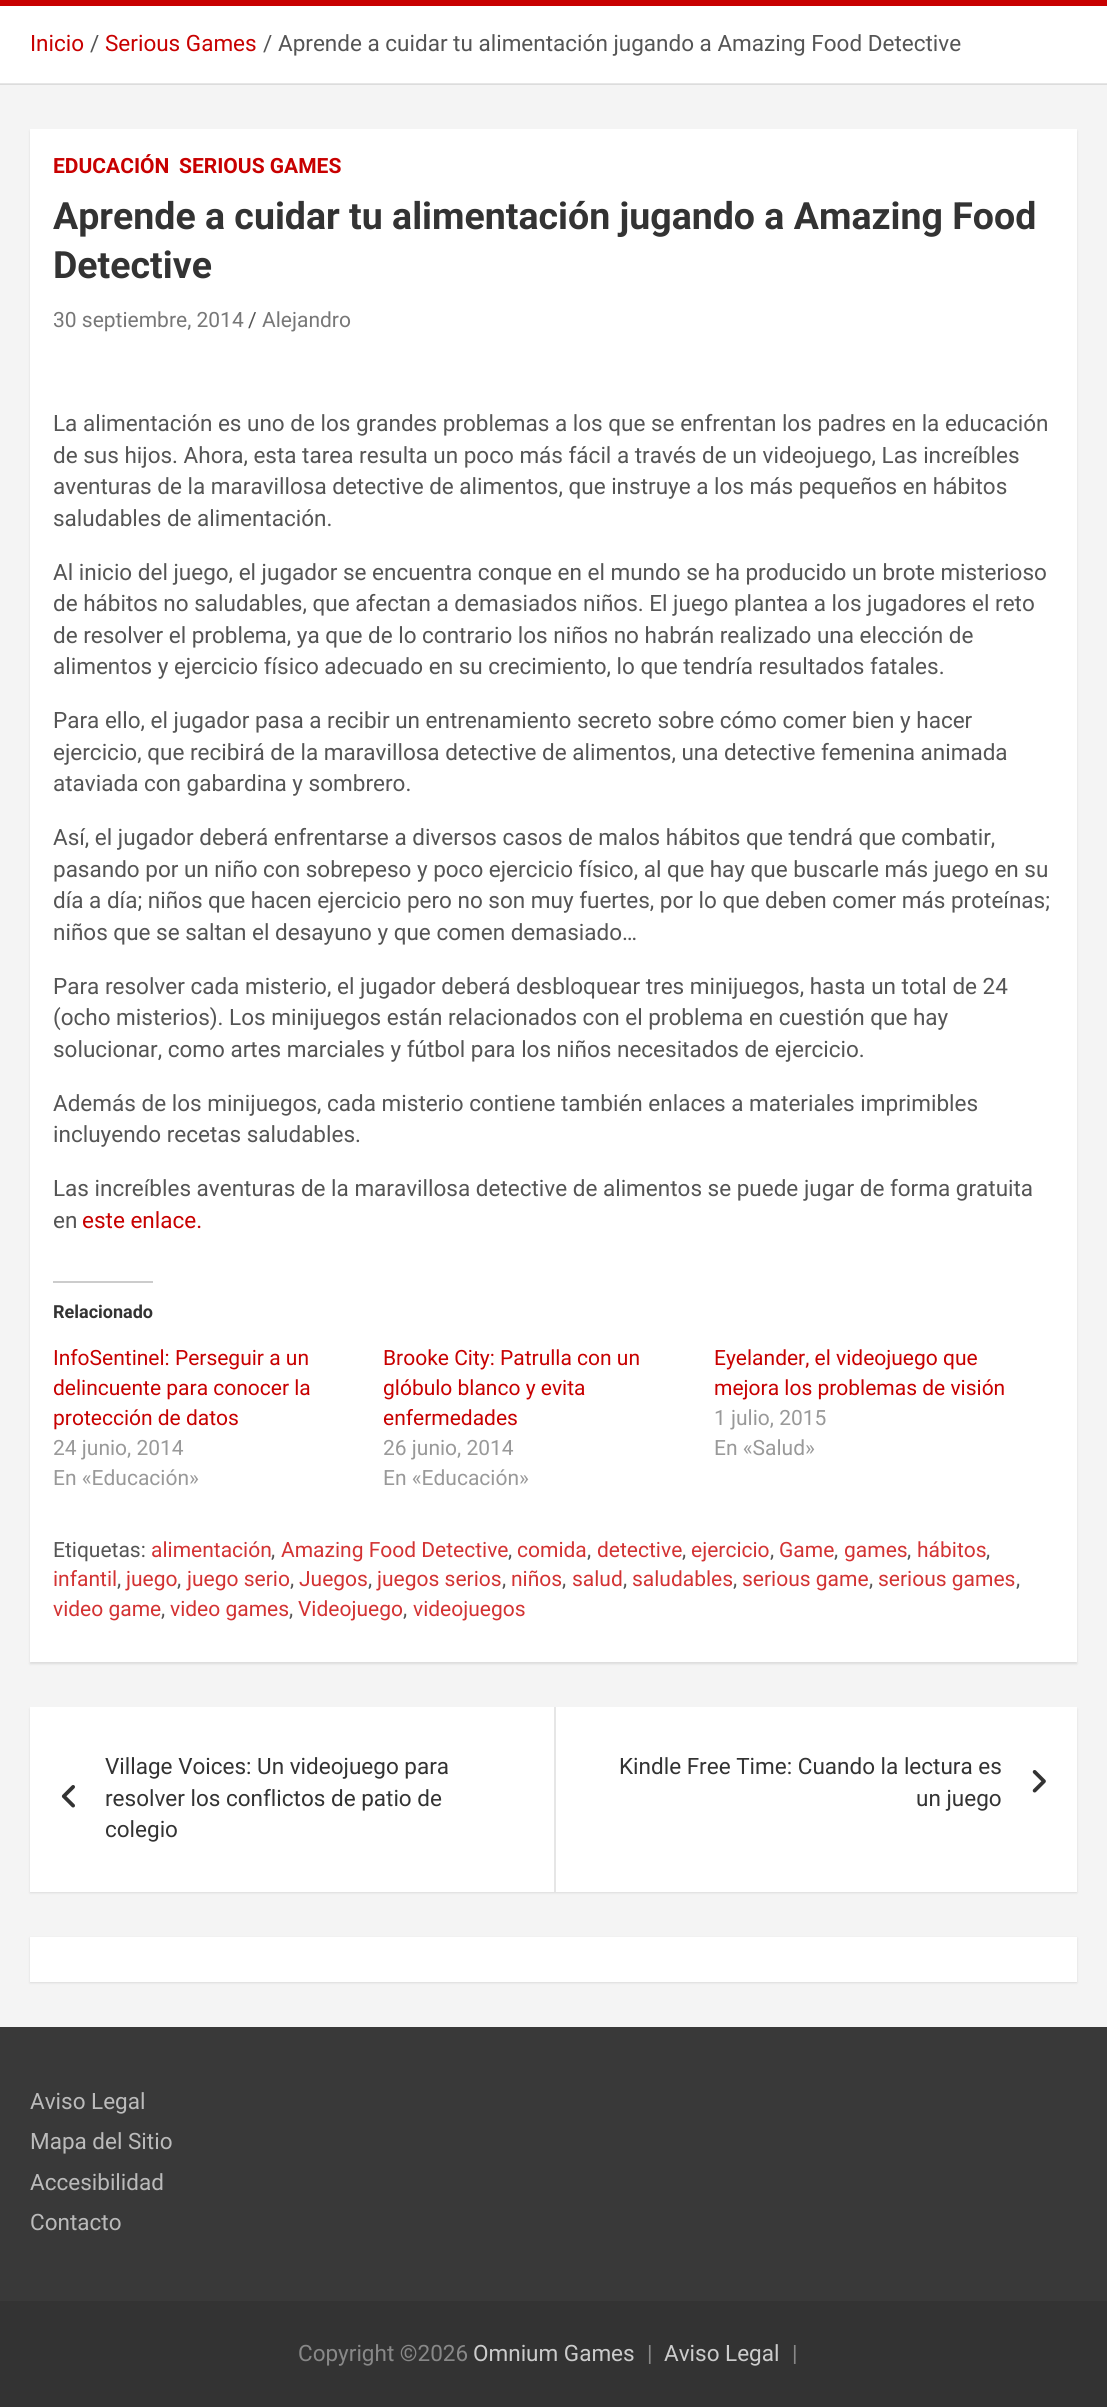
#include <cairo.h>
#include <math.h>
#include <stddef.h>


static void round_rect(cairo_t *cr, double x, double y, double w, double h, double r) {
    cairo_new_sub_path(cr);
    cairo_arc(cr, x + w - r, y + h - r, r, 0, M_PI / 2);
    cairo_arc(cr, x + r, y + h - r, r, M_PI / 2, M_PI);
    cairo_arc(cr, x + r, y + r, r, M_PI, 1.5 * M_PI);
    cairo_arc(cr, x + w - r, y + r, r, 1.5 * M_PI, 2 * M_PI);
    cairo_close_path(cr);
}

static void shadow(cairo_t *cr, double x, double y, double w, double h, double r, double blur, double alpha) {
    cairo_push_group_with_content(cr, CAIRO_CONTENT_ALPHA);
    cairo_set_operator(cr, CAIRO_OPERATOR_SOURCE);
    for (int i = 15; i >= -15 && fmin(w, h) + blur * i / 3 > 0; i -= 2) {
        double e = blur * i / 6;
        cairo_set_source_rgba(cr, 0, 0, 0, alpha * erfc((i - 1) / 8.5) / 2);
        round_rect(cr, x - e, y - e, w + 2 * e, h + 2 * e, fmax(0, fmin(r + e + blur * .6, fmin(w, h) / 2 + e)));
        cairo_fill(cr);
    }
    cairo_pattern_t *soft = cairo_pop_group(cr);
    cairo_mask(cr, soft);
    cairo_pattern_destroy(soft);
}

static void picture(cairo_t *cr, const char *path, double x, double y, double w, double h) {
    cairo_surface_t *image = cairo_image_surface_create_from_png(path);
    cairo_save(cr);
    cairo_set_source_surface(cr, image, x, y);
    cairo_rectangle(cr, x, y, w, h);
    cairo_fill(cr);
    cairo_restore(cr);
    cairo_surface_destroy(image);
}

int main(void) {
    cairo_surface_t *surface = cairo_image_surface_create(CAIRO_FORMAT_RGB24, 1107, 2407);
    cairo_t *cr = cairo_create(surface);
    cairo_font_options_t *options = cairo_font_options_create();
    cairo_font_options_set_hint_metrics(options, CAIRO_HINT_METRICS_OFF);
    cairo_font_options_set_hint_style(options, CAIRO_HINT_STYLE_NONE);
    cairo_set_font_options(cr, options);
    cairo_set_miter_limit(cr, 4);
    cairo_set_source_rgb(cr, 0.957, 0.957, 0.957);
    cairo_paint(cr);
    cairo_set_source_rgb(cr, 0.863, 0.863, 0.863);
    cairo_rectangle(cr, 0, 84, 1107, 1);
    cairo_fill(cr);
    cairo_set_source_rgb(cr, 0.784, 0, 0);
    cairo_rectangle(cr, 0, 0, 1107, 6);
    cairo_fill(cr);
    cairo_set_source_rgb(cr, 1, 1, 1);
    cairo_rectangle(cr, 0, 6, 1107, 77);
    cairo_fill(cr);
    cairo_set_source_rgb(cr, 0.902, 0.902, 0.902);
    cairo_rectangle(cr, 0, 83, 1107, 1);
    cairo_fill(cr);
    cairo_select_font_face(cr, "Roboto", CAIRO_FONT_SLANT_NORMAL, CAIRO_FONT_WEIGHT_NORMAL);
    cairo_set_font_size(cr, 22.5);
    cairo_set_source_rgb(cr, 0.784, 0, 0);
    cairo_move_to(cr, 30, 51);
    cairo_show_text(cr, "Inicio");
    cairo_set_source_rgb(cr, 0.333, 0.333, 0.333);
    cairo_move_to(cr, 90, 51);
    cairo_show_text(cr, "/");
    cairo_set_source_rgb(cr, 0.784, 0, 0);
    cairo_move_to(cr, 105, 51);
    cairo_show_text(cr, "Serious Games");
    cairo_set_source_rgb(cr, 0.333, 0.333, 0.333);
    cairo_move_to(cr, 263, 51);
    cairo_show_text(cr, "/");
    cairo_move_to(cr, 278, 51);
    cairo_show_text(cr, "Aprende a cuidar tu alimentación jugando a Amazing Food Detective");
    cairo_set_source_rgb(cr, 0, 0, 0);
    shadow(cr, 30, 131, 1047, 1533, 0, 1, 0.1);
    cairo_set_source_rgb(cr, 1, 1, 1);
    cairo_rectangle(cr, 30, 129, 1047, 1533);
    cairo_fill(cr);
    cairo_select_font_face(cr, "Roboto", CAIRO_FONT_SLANT_NORMAL, CAIRO_FONT_WEIGHT_BOLD);
    cairo_set_font_size(cr, 21);
    cairo_set_source_rgb(cr, 0.784, 0, 0);
    cairo_move_to(cr, 53, 173);
    cairo_show_text(cr, "EDUCACIÓN");
    cairo_move_to(cr, 179, 173);
    cairo_show_text(cr, "SERIOUS GAMES");
    cairo_set_font_size(cr, 37.5);
    cairo_set_source_rgb(cr, 0.2, 0.2, 0.2);
    cairo_move_to(cr, 53, 229);
    cairo_show_text(cr, "Aprende a cuidar tu alimentación jugando a Amazing Food");
    cairo_move_to(cr, 53, 278);
    cairo_show_text(cr, "Detective");
    cairo_select_font_face(cr, "Roboto", CAIRO_FONT_SLANT_NORMAL, CAIRO_FONT_WEIGHT_NORMAL);
    cairo_set_font_size(cr, 21);
    cairo_set_source_rgb(cr, 0.467, 0.467, 0.467);
    cairo_move_to(cr, 53, 327);
    cairo_show_text(cr, "30 septiembre, 2014");
    cairo_set_source_rgb(cr, 0.333, 0.333, 0.333);
    cairo_move_to(cr, 248, 327);
    cairo_show_text(cr, "/");
    cairo_set_source_rgb(cr, 0.467, 0.467, 0.467);
    cairo_move_to(cr, 262, 327);
    cairo_show_text(cr, "Alejandro");
    cairo_set_font_size(cr, 22.5);
    cairo_set_source_rgb(cr, 0.333, 0.333, 0.333);
    cairo_move_to(cr, 53, 431);
    cairo_show_text(cr, "La alimentación es uno de los grandes problemas a los que se enfrentan los padres en la educación");
    cairo_move_to(cr, 53, 463);
    cairo_show_text(cr, "de sus hijos. Ahora, esta tarea resulta un poco más fácil a través de un videojuego, Las increíbles");
    cairo_move_to(cr, 53, 494);
    cairo_show_text(cr, "aventuras de la maravillosa detective de alimentos, que instruye a los más pequeños en hábitos");
    cairo_move_to(cr, 53, 526);
    cairo_show_text(cr, "saludables de alimentación.");
    cairo_move_to(cr, 53, 580);
    cairo_show_text(cr, "Al inicio del juego, el jugador se encuentra conque en el mundo se ha producido un brote misterioso");
    cairo_move_to(cr, 53, 611);
    cairo_show_text(cr, "de hábitos no saludables, que afectan a demasiados niños. El juego plantea a los jugadores el reto");
    cairo_move_to(cr, 53, 643);
    cairo_show_text(cr, "de resolver el problema, ya que de lo contrario los niños no habrán realizado una elección de");
    cairo_move_to(cr, 53, 674);
    cairo_show_text(cr, "alimentos y ejercicio físico adecuado en su crecimiento, lo que tendría resultados fatales.");
    cairo_move_to(cr, 53, 728);
    cairo_show_text(cr, "Para ello, el jugador pasa a recibir un entrenamiento secreto sobre cómo comer bien y hacer");
    cairo_move_to(cr, 53, 760);
    cairo_show_text(cr, "ejercicio, que recibirá de la maravillosa detective de alimentos, una detective femenina animada");
    cairo_move_to(cr, 53, 791);
    cairo_show_text(cr, "ataviada con gabardina y sombrero.");
    cairo_move_to(cr, 53, 845);
    cairo_show_text(cr, "Así, el jugador deberá enfrentarse a diversos casos de malos hábitos que tendrá que combatir,");
    cairo_move_to(cr, 53, 877);
    cairo_show_text(cr, "pasando por un niño con sobrepeso y poco ejercicio físico, al que hay que buscarle más juego en su");
    cairo_move_to(cr, 53, 908);
    cairo_show_text(cr, "día a día; niños que hacen ejercicio pero no son muy fuertes, por lo que deben comer más proteínas;");
    cairo_move_to(cr, 53, 940);
    cairo_show_text(cr, "niños que se saltan el desayuno y que comen demasiado…");
    cairo_move_to(cr, 53, 994);
    cairo_show_text(cr, "Para resolver cada misterio, el jugador deberá desbloquear tres minijuegos, hasta un total de 24");
    cairo_move_to(cr, 53, 1025);
    cairo_show_text(cr, "(ocho misterios). Los minijuegos están relacionados con el problema en cuestión que hay");
    cairo_move_to(cr, 53, 1057);
    cairo_show_text(cr, "solucionar, como artes marciales y fútbol para los niños necesitados de ejercicio.");
    cairo_move_to(cr, 53, 1111);
    cairo_show_text(cr, "Además de los minijuegos, cada misterio contiene también enlaces a materiales imprimibles");
    cairo_move_to(cr, 53, 1142);
    cairo_show_text(cr, "incluyendo recetas saludables.");
    cairo_move_to(cr, 53, 1196);
    cairo_show_text(cr, "Las increíbles aventuras de la maravillosa detective de alimentos se puede jugar de forma gratuita");
    cairo_move_to(cr, 53, 1228);
    cairo_show_text(cr, "en");
    cairo_set_source_rgb(cr, 0.784, 0, 0);
    cairo_move_to(cr, 82, 1228);
    cairo_show_text(cr, "este enlace.");
    cairo_set_source_rgb(cr, 0.8, 0.8, 0.8);
    cairo_rectangle(cr, 53, 1281, 100, 2);
    cairo_fill(cr);
    cairo_select_font_face(cr, "Roboto", CAIRO_FONT_SLANT_NORMAL, CAIRO_FONT_WEIGHT_BOLD);
    cairo_set_font_size(cr, 18);
    cairo_set_source_rgb(cr, 0.2, 0.2, 0.2);
    cairo_move_to(cr, 53, 1318);
    cairo_show_text(cr, "Relacionado");
    cairo_select_font_face(cr, "Roboto", CAIRO_FONT_SLANT_NORMAL, CAIRO_FONT_WEIGHT_NORMAL);
    cairo_set_font_size(cr, 21);
    cairo_set_source_rgb(cr, 0.784, 0, 0);
    cairo_move_to(cr, 53, 1365);
    cairo_show_text(cr, "InfoSentinel: Perseguir a un");
    cairo_move_to(cr, 53, 1395);
    cairo_show_text(cr, "delincuente para conocer la");
    cairo_move_to(cr, 53, 1425);
    cairo_show_text(cr, "protección de datos");
    cairo_set_source_rgb(cr, 0.6, 0.6, 0.6);
    cairo_move_to(cr, 53, 1455);
    cairo_show_text(cr, "24 junio, 2014");
    cairo_move_to(cr, 53, 1485);
    cairo_show_text(cr, "En «Educación»");
    cairo_set_source_rgb(cr, 0.784, 0, 0);
    cairo_move_to(cr, 383, 1365);
    cairo_show_text(cr, "Brooke City: Patrulla con un");
    cairo_move_to(cr, 383, 1395);
    cairo_show_text(cr, "glóbulo blanco y evita");
    cairo_move_to(cr, 383, 1425);
    cairo_show_text(cr, "enfermedades");
    cairo_set_source_rgb(cr, 0.6, 0.6, 0.6);
    cairo_move_to(cr, 383, 1455);
    cairo_show_text(cr, "26 junio, 2014");
    cairo_move_to(cr, 383, 1485);
    cairo_show_text(cr, "En «Educación»");
    cairo_set_source_rgb(cr, 0.784, 0, 0);
    cairo_move_to(cr, 714, 1365);
    cairo_show_text(cr, "Eyelander, el videojuego que");
    cairo_move_to(cr, 714, 1395);
    cairo_show_text(cr, "mejora los problemas de visión");
    cairo_set_source_rgb(cr, 0.6, 0.6, 0.6);
    cairo_move_to(cr, 714, 1425);
    cairo_show_text(cr, "1 julio, 2015");
    cairo_move_to(cr, 714, 1455);
    cairo_show_text(cr, "En «Salud»");
    cairo_set_source_rgb(cr, 0.333, 0.333, 0.333);
    cairo_move_to(cr, 53, 1557);
    cairo_show_text(cr, "Etiquetas:");
    cairo_set_source_rgb(cr, 0.827, 0.2, 0.2);
    cairo_move_to(cr, 151, 1557);
    cairo_show_text(cr, "alimentación");
    cairo_set_source_rgb(cr, 0.333, 0.333, 0.333);
    cairo_move_to(cr, 271, 1557);
    cairo_show_text(cr, ",");
    cairo_set_source_rgb(cr, 0.827, 0.2, 0.2);
    cairo_move_to(cr, 281, 1557);
    cairo_show_text(cr, "Amazing Food Detective");
    cairo_set_source_rgb(cr, 0.333, 0.333, 0.333);
    cairo_move_to(cr, 508, 1557);
    cairo_show_text(cr, ",");
    cairo_set_source_rgb(cr, 0.827, 0.2, 0.2);
    cairo_move_to(cr, 517, 1557);
    cairo_show_text(cr, "comida");
    cairo_set_source_rgb(cr, 0.333, 0.333, 0.333);
    cairo_move_to(cr, 587, 1557);
    cairo_show_text(cr, ",");
    cairo_set_source_rgb(cr, 0.827, 0.2, 0.2);
    cairo_move_to(cr, 597, 1557);
    cairo_show_text(cr, "detective");
    cairo_set_source_rgb(cr, 0.333, 0.333, 0.333);
    cairo_move_to(cr, 682, 1557);
    cairo_show_text(cr, ",");
    cairo_set_source_rgb(cr, 0.827, 0.2, 0.2);
    cairo_move_to(cr, 691, 1557);
    cairo_show_text(cr, "ejercicio");
    cairo_set_source_rgb(cr, 0.333, 0.333, 0.333);
    cairo_move_to(cr, 770, 1557);
    cairo_show_text(cr, ",");
    cairo_set_source_rgb(cr, 0.827, 0.2, 0.2);
    cairo_move_to(cr, 779, 1557);
    cairo_show_text(cr, "Game");
    cairo_set_source_rgb(cr, 0.333, 0.333, 0.333);
    cairo_move_to(cr, 834, 1557);
    cairo_show_text(cr, ",");
    cairo_set_source_rgb(cr, 0.827, 0.2, 0.2);
    cairo_move_to(cr, 844, 1557);
    cairo_show_text(cr, "games");
    cairo_set_source_rgb(cr, 0.333, 0.333, 0.333);
    cairo_move_to(cr, 907, 1557);
    cairo_show_text(cr, ",");
    cairo_set_source_rgb(cr, 0.827, 0.2, 0.2);
    cairo_move_to(cr, 917, 1557);
    cairo_show_text(cr, "hábitos");
    cairo_set_source_rgb(cr, 0.333, 0.333, 0.333);
    cairo_move_to(cr, 986, 1557);
    cairo_show_text(cr, ",");
    cairo_set_source_rgb(cr, 0.827, 0.2, 0.2);
    cairo_move_to(cr, 53, 1586);
    cairo_show_text(cr, "infantil");
    cairo_set_source_rgb(cr, 0.333, 0.333, 0.333);
    cairo_move_to(cr, 117, 1586);
    cairo_show_text(cr, ",");
    cairo_set_source_rgb(cr, 0.827, 0.2, 0.2);
    cairo_move_to(cr, 126, 1586);
    cairo_show_text(cr, "juego");
    cairo_set_source_rgb(cr, 0.333, 0.333, 0.333);
    cairo_move_to(cr, 177, 1586);
    cairo_show_text(cr, ",");
    cairo_set_source_rgb(cr, 0.827, 0.2, 0.2);
    cairo_move_to(cr, 187, 1586);
    cairo_show_text(cr, "juego serio");
    cairo_set_source_rgb(cr, 0.333, 0.333, 0.333);
    cairo_move_to(cr, 290, 1586);
    cairo_show_text(cr, ",");
    cairo_set_source_rgb(cr, 0.827, 0.2, 0.2);
    cairo_move_to(cr, 299, 1586);
    cairo_show_text(cr, "Juegos");
    cairo_set_source_rgb(cr, 0.333, 0.333, 0.333);
    cairo_move_to(cr, 368, 1586);
    cairo_show_text(cr, ",");
    cairo_set_source_rgb(cr, 0.827, 0.2, 0.2);
    cairo_move_to(cr, 377, 1586);
    cairo_show_text(cr, "juegos serios");
    cairo_set_source_rgb(cr, 0.333, 0.333, 0.333);
    cairo_move_to(cr, 502, 1586);
    cairo_show_text(cr, ",");
    cairo_set_source_rgb(cr, 0.827, 0.2, 0.2);
    cairo_move_to(cr, 511, 1586);
    cairo_show_text(cr, "niños");
    cairo_set_source_rgb(cr, 0.333, 0.333, 0.333);
    cairo_move_to(cr, 562, 1586);
    cairo_show_text(cr, ",");
    cairo_set_source_rgb(cr, 0.827, 0.2, 0.2);
    cairo_move_to(cr, 572, 1586);
    cairo_show_text(cr, "salud");
    cairo_set_source_rgb(cr, 0.333, 0.333, 0.333);
    cairo_move_to(cr, 623, 1586);
    cairo_show_text(cr, ",");
    cairo_set_source_rgb(cr, 0.827, 0.2, 0.2);
    cairo_move_to(cr, 632, 1586);
    cairo_show_text(cr, "saludables");
    cairo_set_source_rgb(cr, 0.333, 0.333, 0.333);
    cairo_move_to(cr, 733, 1586);
    cairo_show_text(cr, ",");
    cairo_set_source_rgb(cr, 0.827, 0.2, 0.2);
    cairo_move_to(cr, 742, 1586);
    cairo_show_text(cr, "serious game");
    cairo_set_source_rgb(cr, 0.333, 0.333, 0.333);
    cairo_move_to(cr, 869, 1586);
    cairo_show_text(cr, ",");
    cairo_set_source_rgb(cr, 0.827, 0.2, 0.2);
    cairo_move_to(cr, 878, 1586);
    cairo_show_text(cr, "serious games");
    cairo_set_source_rgb(cr, 0.333, 0.333, 0.333);
    cairo_move_to(cr, 1016, 1586);
    cairo_show_text(cr, ",");
    cairo_set_source_rgb(cr, 0.827, 0.2, 0.2);
    cairo_move_to(cr, 53, 1616);
    cairo_show_text(cr, "video game");
    cairo_set_source_rgb(cr, 0.333, 0.333, 0.333);
    cairo_move_to(cr, 161, 1616);
    cairo_show_text(cr, ",");
    cairo_set_source_rgb(cr, 0.827, 0.2, 0.2);
    cairo_move_to(cr, 170, 1616);
    cairo_show_text(cr, "video games");
    cairo_set_source_rgb(cr, 0.333, 0.333, 0.333);
    cairo_move_to(cr, 289, 1616);
    cairo_show_text(cr, ",");
    cairo_set_source_rgb(cr, 0.827, 0.2, 0.2);
    cairo_move_to(cr, 298, 1616);
    cairo_show_text(cr, "Videojuego");
    cairo_set_source_rgb(cr, 0.333, 0.333, 0.333);
    cairo_move_to(cr, 403, 1616);
    cairo_show_text(cr, ",");
    cairo_set_source_rgb(cr, 0.827, 0.2, 0.2);
    cairo_move_to(cr, 413, 1616);
    cairo_show_text(cr, "videojuegos");
    cairo_set_source_rgb(cr, 0, 0, 0);
    shadow(cr, 30, 1709, 1047, 184, 0, 1, 0.1);
    cairo_set_source_rgb(cr, 1, 1, 1);
    cairo_rectangle(cr, 30, 1707, 1047, 185);
    cairo_fill(cr);
    cairo_set_font_size(cr, 22.5);
    cairo_set_source_rgb(cr, 0.2, 0.2, 0.2);
    cairo_move_to(cr, 105, 1774);
    cairo_show_text(cr, "Village Voices: Un videojuego para");
    picture(cr, "img1.png", 61, 1785, 14, 23);
    cairo_move_to(cr, 105, 1806);
    cairo_show_text(cr, "resolver los conflictos de patio de");
    cairo_move_to(cr, 105, 1837);
    cairo_show_text(cr, "colegio");
    cairo_set_source_rgb(cr, 0.902, 0.902, 0.902);
    cairo_rectangle(cr, 554, 1707, 2, 185);
    cairo_fill(cr);
    cairo_set_source_rgb(cr, 0.2, 0.2, 0.2);
    cairo_move_to(cr, 619, 1774);
    cairo_show_text(cr, "Kindle Free Time: Cuando la lectura es");
    picture(cr, "img2.png", 1032, 1770, 14, 23);
    cairo_move_to(cr, 916, 1806);
    cairo_show_text(cr, "un juego");
    cairo_set_source_rgb(cr, 0, 0, 0);
    shadow(cr, 30, 1938, 1047, 45, 0, 1, 0.1);
    cairo_set_source_rgb(cr, 1, 1, 1);
    cairo_rectangle(cr, 30, 1937, 1047, 45);
    cairo_fill(cr);
    cairo_set_source_rgb(cr, 0.224, 0.224, 0.224);
    cairo_rectangle(cr, 0, 2027, 1107, 274);
    cairo_fill(cr);
    cairo_set_source_rgb(cr, 0.733, 0.733, 0.733);
    cairo_move_to(cr, 30, 2109);
    cairo_show_text(cr, "Aviso Legal");
    cairo_move_to(cr, 30, 2149);
    cairo_show_text(cr, "Mapa del Sitio");
    cairo_move_to(cr, 30, 2190);
    cairo_show_text(cr, "Accesibilidad");
    cairo_move_to(cr, 30, 2230);
    cairo_show_text(cr, "Contacto");
    cairo_set_source_rgb(cr, 0.2, 0.2, 0.2);
    cairo_rectangle(cr, 0, 2301, 1107, 106);
    cairo_fill(cr);
    cairo_set_source_rgb(cr, 0.533, 0.533, 0.533);
    cairo_move_to(cr, 298, 2361);
    cairo_show_text(cr, "Copyright ©2026");
    cairo_set_source_rgb(cr, 0.8, 0.8, 0.8);
    cairo_move_to(cr, 473, 2361);
    cairo_show_text(cr, "Omnium Games");
    cairo_set_source_rgb(cr, 0.533, 0.533, 0.533);
    cairo_move_to(cr, 647, 2361);
    cairo_show_text(cr, "|");
    cairo_set_source_rgb(cr, 0.8, 0.8, 0.8);
    cairo_move_to(cr, 664, 2361);
    cairo_show_text(cr, "Aviso Legal");
    cairo_set_source_rgb(cr, 0.533, 0.533, 0.533);
    cairo_move_to(cr, 792, 2361);
    cairo_show_text(cr, "|");
    cairo_surface_write_to_png(surface, "page.png");
    cairo_font_options_destroy(options);
    cairo_destroy(cr);
    cairo_surface_destroy(surface);
    return 0;
}
